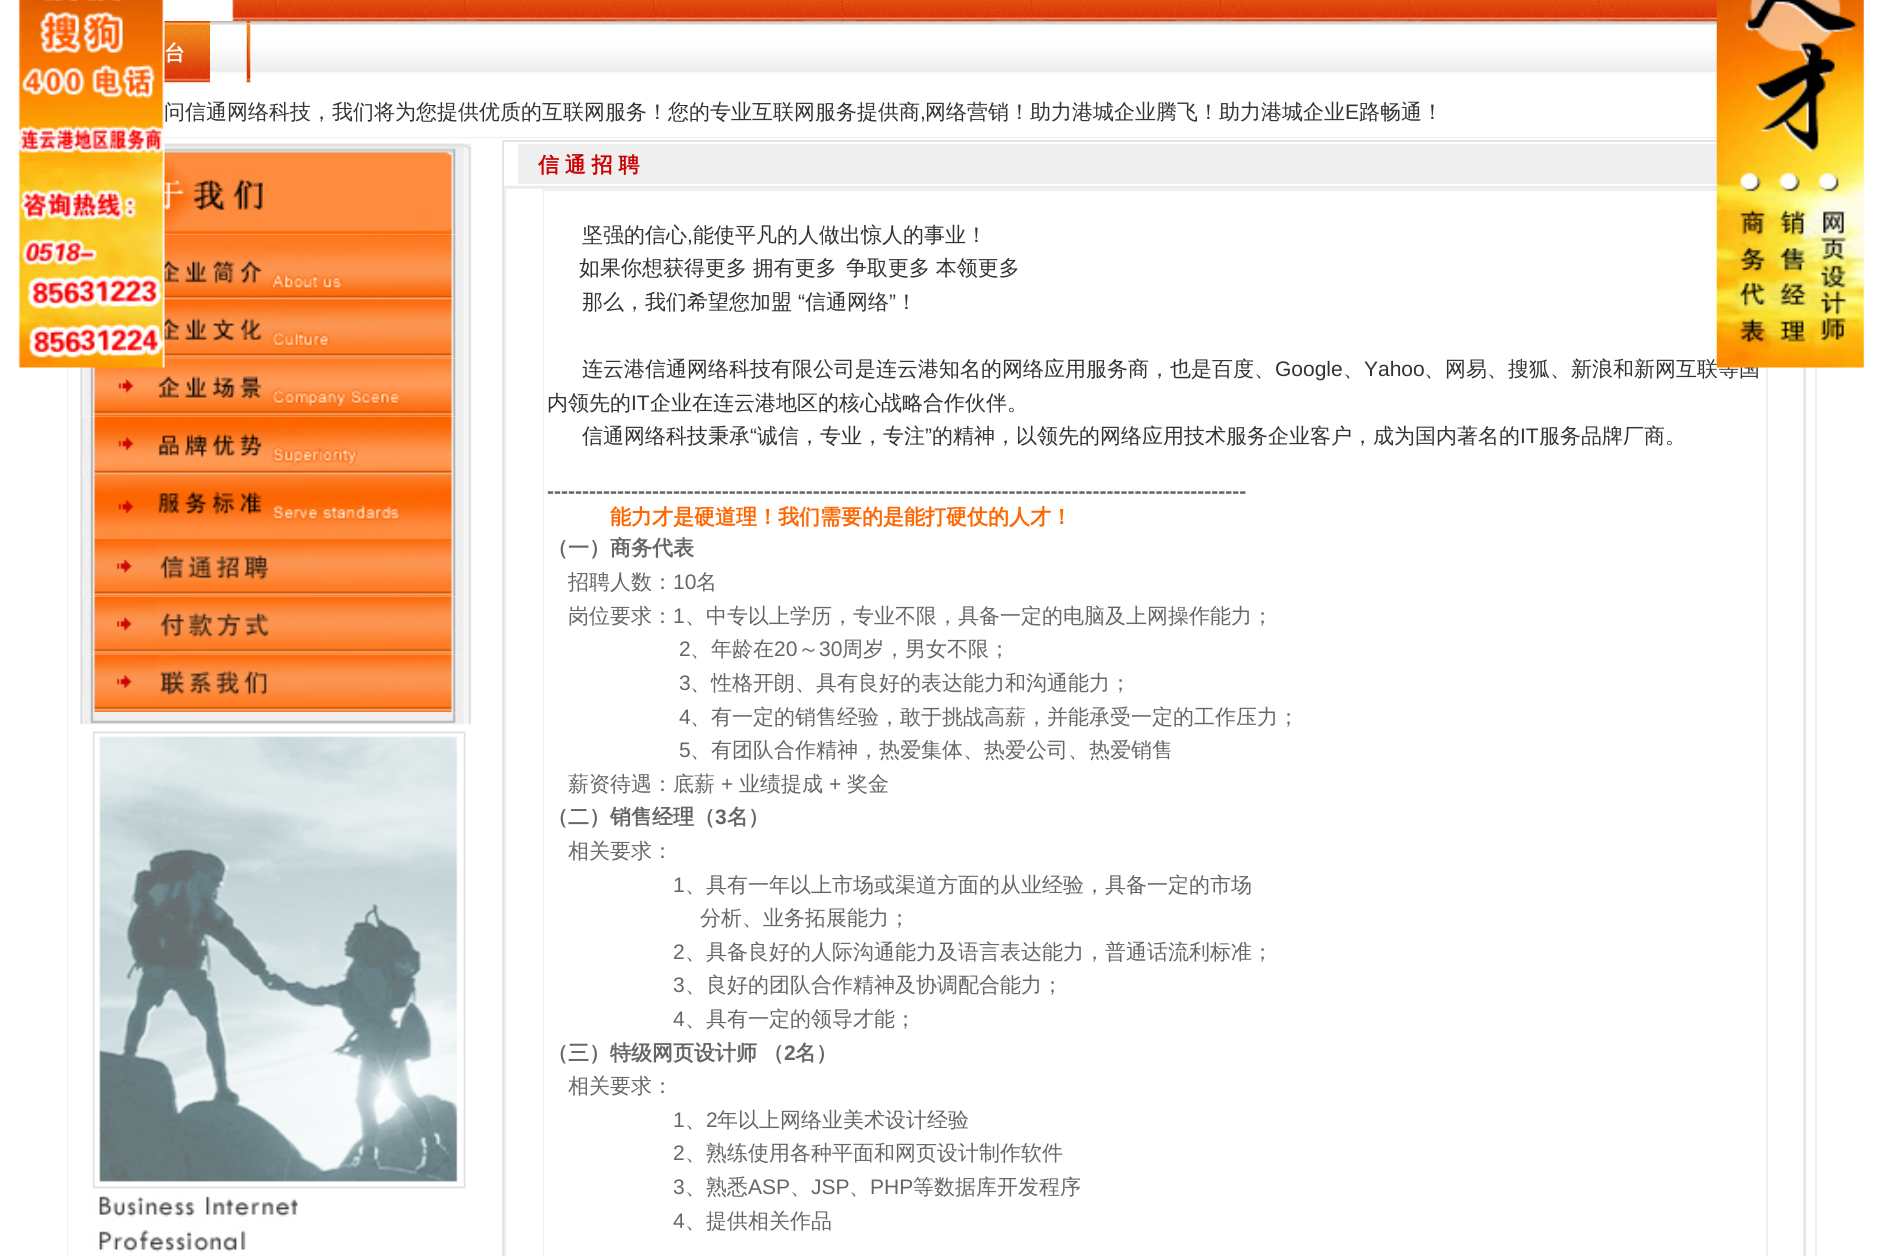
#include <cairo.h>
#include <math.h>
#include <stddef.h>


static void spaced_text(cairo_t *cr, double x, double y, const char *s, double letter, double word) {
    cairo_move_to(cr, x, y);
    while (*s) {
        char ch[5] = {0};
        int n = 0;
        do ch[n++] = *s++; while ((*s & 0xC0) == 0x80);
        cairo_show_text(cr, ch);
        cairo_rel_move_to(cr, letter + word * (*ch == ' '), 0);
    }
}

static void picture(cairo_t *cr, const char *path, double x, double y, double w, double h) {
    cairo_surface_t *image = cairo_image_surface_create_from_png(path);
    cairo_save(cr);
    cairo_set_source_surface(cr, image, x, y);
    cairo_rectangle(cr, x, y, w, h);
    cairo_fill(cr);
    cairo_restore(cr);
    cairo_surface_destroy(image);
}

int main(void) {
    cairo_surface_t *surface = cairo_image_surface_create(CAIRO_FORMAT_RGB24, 1881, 1256);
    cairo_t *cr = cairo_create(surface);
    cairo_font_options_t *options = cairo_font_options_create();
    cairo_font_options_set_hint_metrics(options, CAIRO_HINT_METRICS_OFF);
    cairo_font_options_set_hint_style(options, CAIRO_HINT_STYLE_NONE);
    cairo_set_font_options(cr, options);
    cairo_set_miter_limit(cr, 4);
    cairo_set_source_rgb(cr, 1, 1, 1);
    cairo_paint(cr);
    picture(cr, "img2.png", 210, 0, 1507, 73);
    picture(cr, "img3.png", 164, 0, 74, 21);
    picture(cr, "img25.png", 164, 21, 46, 62);
    cairo_set_source_rgb(cr, 0.937, 0.937, 0.937);
    cairo_rectangle(cr, 67, 137, 1750, 1119);
    cairo_fill(cr);
    cairo_set_source_rgb(cr, 1, 1, 1);
    cairo_rectangle(cr, 68, 138, 1747, 1118);
    cairo_fill(cr);
    picture(cr, "img28.png", 164, 140, 308, 95);
    picture(cr, "img29.png", 164, 234, 308, 67);
    picture(cr, "img30.png", 164, 301, 308, 58);
    picture(cr, "img31.png", 80, 358, 392, 59);
    picture(cr, "img1.png", 18, 0, 147, 368);
    picture(cr, "img4.png", 274, 0, 5, 21);
    picture(cr, "img5.png", 287, 0, 14, 21);
    picture(cr, "img6.png", 301, 0, 126, 21);
    picture(cr, "img7.png", 463, 0, 5, 21);
    picture(cr, "img8.png", 476, 0, 14, 21);
    picture(cr, "img6.png", 490, 0, 126, 21);
    picture(cr, "img9.png", 652, 0, 5, 21);
    picture(cr, "img10.png", 665, 0, 16, 21);
    picture(cr, "img11.png", 679, 2, 126, 19);
    picture(cr, "img12.png", 841, 0, 5, 21);
    picture(cr, "img13.png", 854, 0, 14, 21);
    picture(cr, "img6.png", 868, 0, 126, 21);
    picture(cr, "img14.png", 1030, 0, 5, 21);
    picture(cr, "img15.png", 1043, 0, 14, 21);
    picture(cr, "img16.png", 1057, 0, 119, 21);
    picture(cr, "img17.png", 1219, 0, 5, 21);
    picture(cr, "img18.png", 1232, 0, 14, 21);
    picture(cr, "img6.png", 1246, 0, 126, 21);
    picture(cr, "img19.png", 1408, 0, 5, 21);
    picture(cr, "img20.png", 1421, 0, 14, 21);
    picture(cr, "img21.png", 1435, 0, 126, 21);
    picture(cr, "img22.png", 1597, 0, 5, 21);
    picture(cr, "img23.png", 1610, 0, 16, 21);
    picture(cr, "img24.png", 1624, 2, 93, 19);
    cairo_select_font_face(cr, "WenQuanYi Zen Hei", CAIRO_FONT_SLANT_NORMAL, CAIRO_FONT_WEIGHT_BOLD);
    cairo_set_font_size(cr, 21);
    cairo_move_to(cr, 164, 60);
    cairo_show_text(cr, "台");
    picture(cr, "img26.png", 246, 21, 5, 62);
    cairo_select_font_face(cr, "WenQuanYi Zen Hei Medium", CAIRO_FONT_SLANT_NORMAL, CAIRO_FONT_WEIGHT_NORMAL);
    cairo_set_source_rgb(cr, 0.2, 0.2, 0.2);
    cairo_move_to(cr, 164, 119);
    cairo_show_text(cr, "问信通网络科技，我们将为您提供优质的互联网服务！您的专业互联网服务提供商");
    cairo_select_font_face(cr, "Liberation Sans", CAIRO_FONT_SLANT_NORMAL, CAIRO_FONT_WEIGHT_NORMAL);
    cairo_move_to(cr, 920, 119);
    cairo_show_text(cr, ",");
    cairo_select_font_face(cr, "WenQuanYi Zen Hei Medium", CAIRO_FONT_SLANT_NORMAL, CAIRO_FONT_WEIGHT_NORMAL);
    cairo_move_to(cr, 925, 119);
    cairo_show_text(cr, "网络营销！助力港城企业腾飞！助力港城企业");
    cairo_select_font_face(cr, "Liberation Sans", CAIRO_FONT_SLANT_NORMAL, CAIRO_FONT_WEIGHT_NORMAL);
    cairo_move_to(cr, 1345, 119);
    cairo_show_text(cr, "E");
    cairo_select_font_face(cr, "WenQuanYi Zen Hei Medium", CAIRO_FONT_SLANT_NORMAL, CAIRO_FONT_WEIGHT_NORMAL);
    cairo_move_to(cr, 1359, 119);
    cairo_show_text(cr, "路畅通！");
    cairo_set_source_rgb(cr, 0.902, 0.902, 0.902);
    cairo_rectangle(cr, 502, 140, 1304, 1116);
    cairo_fill(cr);
    cairo_set_source_rgb(cr, 1, 1, 1);
    cairo_rectangle(cr, 504, 142, 1213, 44);
    cairo_fill(cr);
    cairo_set_source_rgb(cr, 0.937, 0.937, 0.937);
    cairo_rectangle(cr, 518, 144, 1199, 40);
    cairo_fill(cr);
    cairo_set_source_rgb(cr, 0.933, 0.933, 0.933);
    cairo_rectangle(cr, 504, 187, 1300, 1069);
    cairo_fill(cr);
    cairo_set_source_rgb(cr, 1, 1, 1);
    cairo_rectangle(cr, 506, 189, 1297, 1067);
    cairo_fill(cr);
    cairo_set_source_rgb(cr, 0.937, 0.937, 0.937);
    cairo_rectangle(cr, 543, 189, 1225, 1067);
    cairo_fill(cr);
    cairo_set_source_rgb(cr, 1, 1, 1);
    cairo_rectangle(cr, 544, 191, 1222, 1065);
    cairo_fill(cr);
    cairo_set_source_rgb(cr, 0.2, 0.2, 0.2);
    cairo_move_to(cr, 1424, 376);
    cairo_show_text(cr, "、网易、搜狐、新浪和新网互联等国");
    picture(cr, "img27.png", 1716, 0, 148, 368);
    picture(cr, "img32.png", 80, 416, 392, 60);
    picture(cr, "img33.png", 80, 476, 392, 63);
    picture(cr, "img34.png", 80, 539, 392, 58);
    picture(cr, "img35.png", 80, 596, 392, 59);
    picture(cr, "img36.png", 80, 654, 392, 59);
    picture(cr, "img37.png", 80, 712, 392, 13);
    picture(cr, "img38.png", 80, 724, 391, 528);
    cairo_select_font_face(cr, "WenQuanYi Zen Hei", CAIRO_FONT_SLANT_NORMAL, CAIRO_FONT_WEIGHT_BOLD);
    cairo_set_source_rgb(cr, 0.8, 0, 0);
    spaced_text(cr, 538, 172, "信 通 招 聘", 0, -0.5);
    cairo_select_font_face(cr, "WenQuanYi Zen Hei Medium", CAIRO_FONT_SLANT_NORMAL, CAIRO_FONT_WEIGHT_NORMAL);
    cairo_set_source_rgb(cr, 0.2, 0.2, 0.2);
    cairo_move_to(cr, 582, 242);
    cairo_show_text(cr, "坚强的信心");
    cairo_select_font_face(cr, "Liberation Sans", CAIRO_FONT_SLANT_NORMAL, CAIRO_FONT_WEIGHT_NORMAL);
    cairo_move_to(cr, 687, 242);
    cairo_show_text(cr, ",");
    cairo_select_font_face(cr, "WenQuanYi Zen Hei Medium", CAIRO_FONT_SLANT_NORMAL, CAIRO_FONT_WEIGHT_NORMAL);
    cairo_move_to(cr, 693, 242);
    cairo_show_text(cr, "能使平凡的人做出惊人的事业！");
    spaced_text(cr, 579, 275, "如果你想获得更多 拥有更多", 0, -0.5);
    spaced_text(cr, 846, 275, "争取更多 本领更多", 0, -0.5);
    cairo_move_to(cr, 582, 309);
    cairo_show_text(cr, "那么，我们希望您加盟");
    cairo_select_font_face(cr, "Liberation Sans", CAIRO_FONT_SLANT_NORMAL, CAIRO_FONT_WEIGHT_NORMAL);
    cairo_move_to(cr, 798, 309);
    cairo_show_text(cr, "“");
    cairo_select_font_face(cr, "WenQuanYi Zen Hei Medium", CAIRO_FONT_SLANT_NORMAL, CAIRO_FONT_WEIGHT_NORMAL);
    cairo_move_to(cr, 805, 309);
    cairo_show_text(cr, "信通网络");
    cairo_select_font_face(cr, "Liberation Sans", CAIRO_FONT_SLANT_NORMAL, CAIRO_FONT_WEIGHT_NORMAL);
    cairo_move_to(cr, 889, 309);
    cairo_show_text(cr, "”");
    cairo_select_font_face(cr, "WenQuanYi Zen Hei Medium", CAIRO_FONT_SLANT_NORMAL, CAIRO_FONT_WEIGHT_NORMAL);
    cairo_move_to(cr, 896, 309);
    cairo_show_text(cr, "！");
    cairo_move_to(cr, 582, 376);
    cairo_show_text(cr, "连云港信通网络科技有限公司是连云港知名的网络应用服务商，也是百度、");
    cairo_select_font_face(cr, "Liberation Sans", CAIRO_FONT_SLANT_NORMAL, CAIRO_FONT_WEIGHT_NORMAL);
    cairo_move_to(cr, 1275, 376);
    cairo_show_text(cr, "Google");
    cairo_select_font_face(cr, "WenQuanYi Zen Hei Medium", CAIRO_FONT_SLANT_NORMAL, CAIRO_FONT_WEIGHT_NORMAL);
    cairo_move_to(cr, 1343, 376);
    cairo_show_text(cr, "、");
    cairo_select_font_face(cr, "Liberation Sans", CAIRO_FONT_SLANT_NORMAL, CAIRO_FONT_WEIGHT_NORMAL);
    cairo_move_to(cr, 1364, 376);
    cairo_show_text(cr, "Yahoo");
    cairo_select_font_face(cr, "WenQuanYi Zen Hei Medium", CAIRO_FONT_SLANT_NORMAL, CAIRO_FONT_WEIGHT_NORMAL);
    cairo_move_to(cr, 547, 410);
    cairo_show_text(cr, "内领先的");
    cairo_select_font_face(cr, "Liberation Sans", CAIRO_FONT_SLANT_NORMAL, CAIRO_FONT_WEIGHT_NORMAL);
    cairo_move_to(cr, 631, 410);
    cairo_show_text(cr, "IT");
    cairo_select_font_face(cr, "WenQuanYi Zen Hei Medium", CAIRO_FONT_SLANT_NORMAL, CAIRO_FONT_WEIGHT_NORMAL);
    cairo_move_to(cr, 650, 410);
    cairo_show_text(cr, "企业在连云港地区的核心战略合作伙伴。");
    cairo_move_to(cr, 582, 443);
    cairo_show_text(cr, "信通网络科技秉承");
    cairo_select_font_face(cr, "Liberation Sans", CAIRO_FONT_SLANT_NORMAL, CAIRO_FONT_WEIGHT_NORMAL);
    cairo_move_to(cr, 750, 443);
    cairo_show_text(cr, "“");
    cairo_select_font_face(cr, "WenQuanYi Zen Hei Medium", CAIRO_FONT_SLANT_NORMAL, CAIRO_FONT_WEIGHT_NORMAL);
    cairo_move_to(cr, 757, 443);
    cairo_show_text(cr, "诚信，专业，专注");
    cairo_select_font_face(cr, "Liberation Sans", CAIRO_FONT_SLANT_NORMAL, CAIRO_FONT_WEIGHT_NORMAL);
    cairo_move_to(cr, 925, 443);
    cairo_show_text(cr, "”");
    cairo_select_font_face(cr, "WenQuanYi Zen Hei Medium", CAIRO_FONT_SLANT_NORMAL, CAIRO_FONT_WEIGHT_NORMAL);
    cairo_move_to(cr, 932, 443);
    cairo_show_text(cr, "的精神，以领先的网络应用技术服务企业客户，成为国内著名的");
    cairo_select_font_face(cr, "Liberation Sans", CAIRO_FONT_SLANT_NORMAL, CAIRO_FONT_WEIGHT_NORMAL);
    cairo_move_to(cr, 1520, 443);
    cairo_show_text(cr, "IT");
    cairo_select_font_face(cr, "WenQuanYi Zen Hei Medium", CAIRO_FONT_SLANT_NORMAL, CAIRO_FONT_WEIGHT_NORMAL);
    cairo_move_to(cr, 1539, 443);
    cairo_show_text(cr, "服务品牌厂商。");
    cairo_select_font_face(cr, "Liberation Sans", CAIRO_FONT_SLANT_NORMAL, CAIRO_FONT_WEIGHT_BOLD);
    cairo_set_source_rgb(cr, 0.4, 0.4, 0.4);
    cairo_move_to(cr, 547, 498);
    cairo_show_text(cr, "----------------------------------------------------------------------------------------------------");
    cairo_select_font_face(cr, "WenQuanYi Zen Hei", CAIRO_FONT_SLANT_NORMAL, CAIRO_FONT_WEIGHT_BOLD);
    cairo_set_source_rgb(cr, 1, 0.4, 0);
    cairo_move_to(cr, 610, 524);
    cairo_show_text(cr, "能力才是硬道理！我们需要的是能打硬仗的人才！");
    cairo_set_source_rgb(cr, 0.4, 0.4, 0.4);
    cairo_move_to(cr, 547, 555);
    cairo_show_text(cr, "（一）商务代表");
    cairo_select_font_face(cr, "WenQuanYi Zen Hei Medium", CAIRO_FONT_SLANT_NORMAL, CAIRO_FONT_WEIGHT_NORMAL);
    cairo_move_to(cr, 568, 589);
    cairo_show_text(cr, "招聘人数：");
    cairo_select_font_face(cr, "Liberation Sans", CAIRO_FONT_SLANT_NORMAL, CAIRO_FONT_WEIGHT_NORMAL);
    cairo_move_to(cr, 673, 589);
    cairo_show_text(cr, "10");
    cairo_select_font_face(cr, "WenQuanYi Zen Hei Medium", CAIRO_FONT_SLANT_NORMAL, CAIRO_FONT_WEIGHT_NORMAL);
    cairo_move_to(cr, 696, 589);
    cairo_show_text(cr, "名");
    cairo_move_to(cr, 568, 623);
    cairo_show_text(cr, "岗位要求：");
    cairo_select_font_face(cr, "Liberation Sans", CAIRO_FONT_SLANT_NORMAL, CAIRO_FONT_WEIGHT_NORMAL);
    cairo_move_to(cr, 673, 623);
    cairo_show_text(cr, "1");
    cairo_select_font_face(cr, "WenQuanYi Zen Hei Medium", CAIRO_FONT_SLANT_NORMAL, CAIRO_FONT_WEIGHT_NORMAL);
    cairo_move_to(cr, 685, 623);
    cairo_show_text(cr, "、中专以上学历，专业不限，具备一定的电脑及上网操作能力；");
    cairo_select_font_face(cr, "Liberation Sans", CAIRO_FONT_SLANT_NORMAL, CAIRO_FONT_WEIGHT_NORMAL);
    cairo_move_to(cr, 679, 656);
    cairo_show_text(cr, "2");
    cairo_select_font_face(cr, "WenQuanYi Zen Hei Medium", CAIRO_FONT_SLANT_NORMAL, CAIRO_FONT_WEIGHT_NORMAL);
    cairo_move_to(cr, 690, 656);
    cairo_show_text(cr, "、年龄在");
    cairo_select_font_face(cr, "Liberation Sans", CAIRO_FONT_SLANT_NORMAL, CAIRO_FONT_WEIGHT_NORMAL);
    cairo_move_to(cr, 774, 656);
    cairo_show_text(cr, "20");
    cairo_select_font_face(cr, "WenQuanYi Zen Hei Medium", CAIRO_FONT_SLANT_NORMAL, CAIRO_FONT_WEIGHT_NORMAL);
    cairo_move_to(cr, 798, 656);
    cairo_show_text(cr, "～");
    cairo_select_font_face(cr, "Liberation Sans", CAIRO_FONT_SLANT_NORMAL, CAIRO_FONT_WEIGHT_NORMAL);
    cairo_move_to(cr, 819, 656);
    cairo_show_text(cr, "30");
    cairo_select_font_face(cr, "WenQuanYi Zen Hei Medium", CAIRO_FONT_SLANT_NORMAL, CAIRO_FONT_WEIGHT_NORMAL);
    cairo_move_to(cr, 842, 656);
    cairo_show_text(cr, "周岁，男女不限；");
    cairo_select_font_face(cr, "Liberation Sans", CAIRO_FONT_SLANT_NORMAL, CAIRO_FONT_WEIGHT_NORMAL);
    cairo_move_to(cr, 679, 690);
    cairo_show_text(cr, "3");
    cairo_select_font_face(cr, "WenQuanYi Zen Hei Medium", CAIRO_FONT_SLANT_NORMAL, CAIRO_FONT_WEIGHT_NORMAL);
    cairo_move_to(cr, 690, 690);
    cairo_show_text(cr, "、性格开朗、具有良好的表达能力和沟通能力；");
    cairo_select_font_face(cr, "Liberation Sans", CAIRO_FONT_SLANT_NORMAL, CAIRO_FONT_WEIGHT_NORMAL);
    cairo_move_to(cr, 679, 724);
    cairo_show_text(cr, "4");
    cairo_select_font_face(cr, "WenQuanYi Zen Hei Medium", CAIRO_FONT_SLANT_NORMAL, CAIRO_FONT_WEIGHT_NORMAL);
    cairo_move_to(cr, 690, 724);
    cairo_show_text(cr, "、有一定的销售经验，敢于挑战高薪，并能承受一定的工作压力；");
    cairo_select_font_face(cr, "Liberation Sans", CAIRO_FONT_SLANT_NORMAL, CAIRO_FONT_WEIGHT_NORMAL);
    cairo_move_to(cr, 679, 757);
    cairo_show_text(cr, "5");
    cairo_select_font_face(cr, "WenQuanYi Zen Hei Medium", CAIRO_FONT_SLANT_NORMAL, CAIRO_FONT_WEIGHT_NORMAL);
    cairo_move_to(cr, 690, 757);
    cairo_show_text(cr, "、有团队合作精神，热爱集体、热爱公司、热爱销售");
    cairo_move_to(cr, 568, 791);
    cairo_show_text(cr, "薪资待遇：底薪");
    cairo_select_font_face(cr, "Liberation Sans", CAIRO_FONT_SLANT_NORMAL, CAIRO_FONT_WEIGHT_NORMAL);
    cairo_move_to(cr, 721, 791);
    cairo_show_text(cr, "+");
    cairo_select_font_face(cr, "WenQuanYi Zen Hei Medium", CAIRO_FONT_SLANT_NORMAL, CAIRO_FONT_WEIGHT_NORMAL);
    cairo_move_to(cr, 739, 791);
    cairo_show_text(cr, "业绩提成");
    cairo_select_font_face(cr, "Liberation Sans", CAIRO_FONT_SLANT_NORMAL, CAIRO_FONT_WEIGHT_NORMAL);
    cairo_move_to(cr, 829, 791);
    cairo_show_text(cr, "+");
    cairo_select_font_face(cr, "WenQuanYi Zen Hei Medium", CAIRO_FONT_SLANT_NORMAL, CAIRO_FONT_WEIGHT_NORMAL);
    cairo_move_to(cr, 847, 791);
    cairo_show_text(cr, "奖金");
    cairo_select_font_face(cr, "WenQuanYi Zen Hei", CAIRO_FONT_SLANT_NORMAL, CAIRO_FONT_WEIGHT_BOLD);
    cairo_move_to(cr, 547, 824);
    cairo_show_text(cr, "（二）销售经理（");
    cairo_select_font_face(cr, "Liberation Sans", CAIRO_FONT_SLANT_NORMAL, CAIRO_FONT_WEIGHT_BOLD);
    cairo_move_to(cr, 715, 824);
    cairo_show_text(cr, "3");
    cairo_select_font_face(cr, "WenQuanYi Zen Hei", CAIRO_FONT_SLANT_NORMAL, CAIRO_FONT_WEIGHT_BOLD);
    cairo_move_to(cr, 727, 824);
    cairo_show_text(cr, "名）");
    cairo_select_font_face(cr, "WenQuanYi Zen Hei Medium", CAIRO_FONT_SLANT_NORMAL, CAIRO_FONT_WEIGHT_NORMAL);
    cairo_move_to(cr, 568, 858);
    cairo_show_text(cr, "相关要求：");
    cairo_select_font_face(cr, "Liberation Sans", CAIRO_FONT_SLANT_NORMAL, CAIRO_FONT_WEIGHT_NORMAL);
    cairo_move_to(cr, 673, 892);
    cairo_show_text(cr, "1");
    cairo_select_font_face(cr, "WenQuanYi Zen Hei Medium", CAIRO_FONT_SLANT_NORMAL, CAIRO_FONT_WEIGHT_NORMAL);
    cairo_move_to(cr, 685, 892);
    cairo_show_text(cr, "、具有一年以上市场或渠道方面的从业经验，具备一定的市场");
    cairo_move_to(cr, 700, 925);
    cairo_show_text(cr, "分析、业务拓展能力；");
    cairo_select_font_face(cr, "Liberation Sans", CAIRO_FONT_SLANT_NORMAL, CAIRO_FONT_WEIGHT_NORMAL);
    cairo_move_to(cr, 673, 959);
    cairo_show_text(cr, "2");
    cairo_select_font_face(cr, "WenQuanYi Zen Hei Medium", CAIRO_FONT_SLANT_NORMAL, CAIRO_FONT_WEIGHT_NORMAL);
    cairo_move_to(cr, 685, 959);
    cairo_show_text(cr, "、具备良好的人际沟通能力及语言表达能力，普通话流利标准；");
    cairo_select_font_face(cr, "Liberation Sans", CAIRO_FONT_SLANT_NORMAL, CAIRO_FONT_WEIGHT_NORMAL);
    cairo_move_to(cr, 673, 992);
    cairo_show_text(cr, "3");
    cairo_select_font_face(cr, "WenQuanYi Zen Hei Medium", CAIRO_FONT_SLANT_NORMAL, CAIRO_FONT_WEIGHT_NORMAL);
    cairo_move_to(cr, 685, 992);
    cairo_show_text(cr, "、良好的团队合作精神及协调配合能力；");
    cairo_select_font_face(cr, "Liberation Sans", CAIRO_FONT_SLANT_NORMAL, CAIRO_FONT_WEIGHT_NORMAL);
    cairo_move_to(cr, 673, 1026);
    cairo_show_text(cr, "4");
    cairo_select_font_face(cr, "WenQuanYi Zen Hei Medium", CAIRO_FONT_SLANT_NORMAL, CAIRO_FONT_WEIGHT_NORMAL);
    cairo_move_to(cr, 685, 1026);
    cairo_show_text(cr, "、具有一定的领导才能；");
    cairo_select_font_face(cr, "WenQuanYi Zen Hei", CAIRO_FONT_SLANT_NORMAL, CAIRO_FONT_WEIGHT_BOLD);
    spaced_text(cr, 547, 1060, "（三）特级网页设计师 （", 0, -0.5);
    cairo_select_font_face(cr, "Liberation Sans", CAIRO_FONT_SLANT_NORMAL, CAIRO_FONT_WEIGHT_BOLD);
    cairo_move_to(cr, 784, 1060);
    cairo_show_text(cr, "2");
    cairo_select_font_face(cr, "WenQuanYi Zen Hei", CAIRO_FONT_SLANT_NORMAL, CAIRO_FONT_WEIGHT_BOLD);
    cairo_move_to(cr, 795, 1060);
    cairo_show_text(cr, "名）");
    cairo_select_font_face(cr, "WenQuanYi Zen Hei Medium", CAIRO_FONT_SLANT_NORMAL, CAIRO_FONT_WEIGHT_NORMAL);
    cairo_move_to(cr, 568, 1093);
    cairo_show_text(cr, "相关要求：");
    cairo_select_font_face(cr, "Liberation Sans", CAIRO_FONT_SLANT_NORMAL, CAIRO_FONT_WEIGHT_NORMAL);
    cairo_move_to(cr, 673, 1127);
    cairo_show_text(cr, "1");
    cairo_move_to(cr, 706, 1127);
    cairo_show_text(cr, "2");
    cairo_select_font_face(cr, "WenQuanYi Zen Hei Medium", CAIRO_FONT_SLANT_NORMAL, CAIRO_FONT_WEIGHT_NORMAL);
    cairo_move_to(cr, 717, 1127);
    cairo_show_text(cr, "年以上网络业美术设计经验");
    cairo_move_to(cr, 685, 1127);
    cairo_show_text(cr, "、");
    cairo_select_font_face(cr, "Liberation Sans", CAIRO_FONT_SLANT_NORMAL, CAIRO_FONT_WEIGHT_NORMAL);
    cairo_move_to(cr, 673, 1160);
    cairo_show_text(cr, "2");
    cairo_select_font_face(cr, "WenQuanYi Zen Hei Medium", CAIRO_FONT_SLANT_NORMAL, CAIRO_FONT_WEIGHT_NORMAL);
    cairo_move_to(cr, 685, 1160);
    cairo_show_text(cr, "、熟练使用各种平面和网页设计制作软件");
    cairo_select_font_face(cr, "Liberation Sans", CAIRO_FONT_SLANT_NORMAL, CAIRO_FONT_WEIGHT_NORMAL);
    cairo_move_to(cr, 673, 1194);
    cairo_show_text(cr, "3");
    cairo_select_font_face(cr, "WenQuanYi Zen Hei Medium", CAIRO_FONT_SLANT_NORMAL, CAIRO_FONT_WEIGHT_NORMAL);
    cairo_move_to(cr, 685, 1194);
    cairo_show_text(cr, "、熟悉");
    cairo_select_font_face(cr, "Liberation Sans", CAIRO_FONT_SLANT_NORMAL, CAIRO_FONT_WEIGHT_NORMAL);
    cairo_move_to(cr, 748, 1194);
    cairo_show_text(cr, "ASP");
    cairo_move_to(cr, 811, 1194);
    cairo_show_text(cr, "JSP");
    cairo_move_to(cr, 870, 1194);
    cairo_show_text(cr, "PHP");
    cairo_select_font_face(cr, "WenQuanYi Zen Hei Medium", CAIRO_FONT_SLANT_NORMAL, CAIRO_FONT_WEIGHT_NORMAL);
    cairo_move_to(cr, 913, 1194);
    cairo_show_text(cr, "等数据库开发程序");
    cairo_move_to(cr, 790, 1194);
    cairo_show_text(cr, "、");
    cairo_move_to(cr, 849, 1194);
    cairo_show_text(cr, "、");
    cairo_select_font_face(cr, "Liberation Sans", CAIRO_FONT_SLANT_NORMAL, CAIRO_FONT_WEIGHT_NORMAL);
    cairo_move_to(cr, 673, 1228);
    cairo_show_text(cr, "4");
    cairo_select_font_face(cr, "WenQuanYi Zen Hei Medium", CAIRO_FONT_SLANT_NORMAL, CAIRO_FONT_WEIGHT_NORMAL);
    cairo_move_to(cr, 685, 1228);
    cairo_show_text(cr, "、提供相关作品");
    cairo_surface_write_to_png(surface, "page.png");
    cairo_font_options_destroy(options);
    cairo_destroy(cr);
    cairo_surface_destroy(surface);
    return 0;
}
